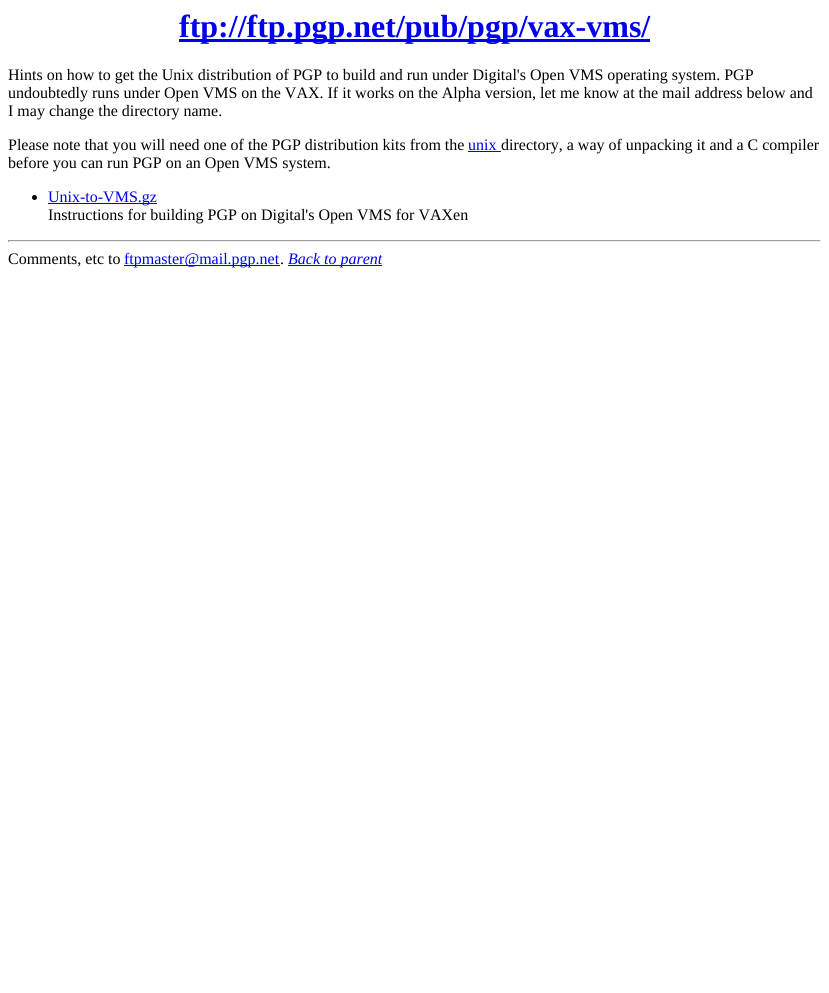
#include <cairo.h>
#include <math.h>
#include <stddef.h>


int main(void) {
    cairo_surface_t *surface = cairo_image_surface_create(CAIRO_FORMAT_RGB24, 829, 993);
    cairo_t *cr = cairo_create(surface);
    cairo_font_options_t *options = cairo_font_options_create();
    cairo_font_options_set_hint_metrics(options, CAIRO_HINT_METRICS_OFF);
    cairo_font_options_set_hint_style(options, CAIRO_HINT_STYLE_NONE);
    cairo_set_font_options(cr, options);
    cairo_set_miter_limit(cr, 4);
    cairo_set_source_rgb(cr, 1, 1, 1);
    cairo_paint(cr);
    cairo_set_source_rgb(cr, 0, 0, 0.933);
    cairo_rectangle(cr, 179, 39, 471, 3);
    cairo_fill(cr);
    cairo_select_font_face(cr, "Liberation Serif", CAIRO_FONT_SLANT_NORMAL, CAIRO_FONT_WEIGHT_BOLD);
    cairo_set_font_size(cr, 32);
    cairo_move_to(cr, 179, 37);
    cairo_show_text(cr, "ftp://ftp.pgp.net/pub/pgp/vax-vms/");
    cairo_select_font_face(cr, "Liberation Serif", CAIRO_FONT_SLANT_NORMAL, CAIRO_FONT_WEIGHT_NORMAL);
    cairo_set_font_size(cr, 16);
    cairo_set_source_rgb(cr, 0, 0, 0);
    cairo_move_to(cr, 8, 80);
    cairo_show_text(cr, "Hints on how to get the Unix distribution of PGP to build and run under Digital's Open VMS operating system. PGP");
    cairo_move_to(cr, 8, 98);
    cairo_show_text(cr, "undoubtedly runs under Open VMS on the VAX. If it works on the Alpha version, let me know at the mail address below and");
    cairo_move_to(cr, 8, 116);
    cairo_show_text(cr, "I may change the directory name.");
    cairo_move_to(cr, 8, 150);
    cairo_show_text(cr, "Please note that you will need one of the PGP distribution kits from the");
    cairo_set_source_rgb(cr, 0, 0, 0.933);
    cairo_move_to(cr, 468, 150);
    cairo_show_text(cr, "unix");
    cairo_rectangle(cr, 468, 151, 33, 1);
    cairo_fill(cr);
    cairo_set_source_rgb(cr, 0, 0, 0);
    cairo_move_to(cr, 501, 150);
    cairo_show_text(cr, "directory, a way of unpacking it and a C compiler");
    cairo_move_to(cr, 8, 168);
    cairo_show_text(cr, "before you can run PGP on an Open VMS system.");
    cairo_new_path(cr);
    cairo_arc(cr, 34.5, 197.5, 2.5, 0, 2 * M_PI);
    cairo_fill(cr);
    cairo_set_source_rgb(cr, 0, 0, 0.933);
    cairo_rectangle(cr, 48, 203, 109, 1);
    cairo_fill(cr);
    cairo_move_to(cr, 48, 202);
    cairo_show_text(cr, "Unix-to-VMS.gz");
    cairo_set_source_rgb(cr, 0, 0, 0);
    cairo_move_to(cr, 48, 220);
    cairo_show_text(cr, "Instructions for building PGP on Digital's Open VMS for VAXen");
    cairo_set_source_rgb(cr, 0.624, 0.624, 0.624);
    cairo_rectangle(cr, 8, 240, 813, 1);
    cairo_fill(cr);
    cairo_set_source_rgb(cr, 0.933, 0.933, 0.933);
    cairo_rectangle(cr, 820, 240, 1, 2);
    cairo_fill(cr);
    cairo_rectangle(cr, 8, 241, 813, 1);
    cairo_fill(cr);
    cairo_set_source_rgb(cr, 0.624, 0.624, 0.624);
    cairo_rectangle(cr, 8, 240, 1, 2);
    cairo_fill(cr);
    cairo_set_source_rgb(cr, 0, 0, 0);
    cairo_move_to(cr, 8, 264);
    cairo_show_text(cr, "Comments, etc to");
    cairo_set_source_rgb(cr, 0, 0, 0.933);
    cairo_rectangle(cr, 124, 265, 156, 1);
    cairo_fill(cr);
    cairo_move_to(cr, 124, 264);
    cairo_show_text(cr, "ftpmaster@mail.pgp.net");
    cairo_set_source_rgb(cr, 0, 0, 0);
    cairo_move_to(cr, 280, 264);
    cairo_show_text(cr, ".");
    cairo_set_source_rgb(cr, 0, 0, 0.933);
    cairo_rectangle(cr, 288, 265, 94, 1);
    cairo_fill(cr);
    cairo_select_font_face(cr, "Liberation Serif", CAIRO_FONT_SLANT_ITALIC, CAIRO_FONT_WEIGHT_NORMAL);
    cairo_move_to(cr, 288, 264);
    cairo_show_text(cr, "Back to parent");
    cairo_surface_write_to_png(surface, "page.png");
    cairo_font_options_destroy(options);
    cairo_destroy(cr);
    cairo_surface_destroy(surface);
    return 0;
}
